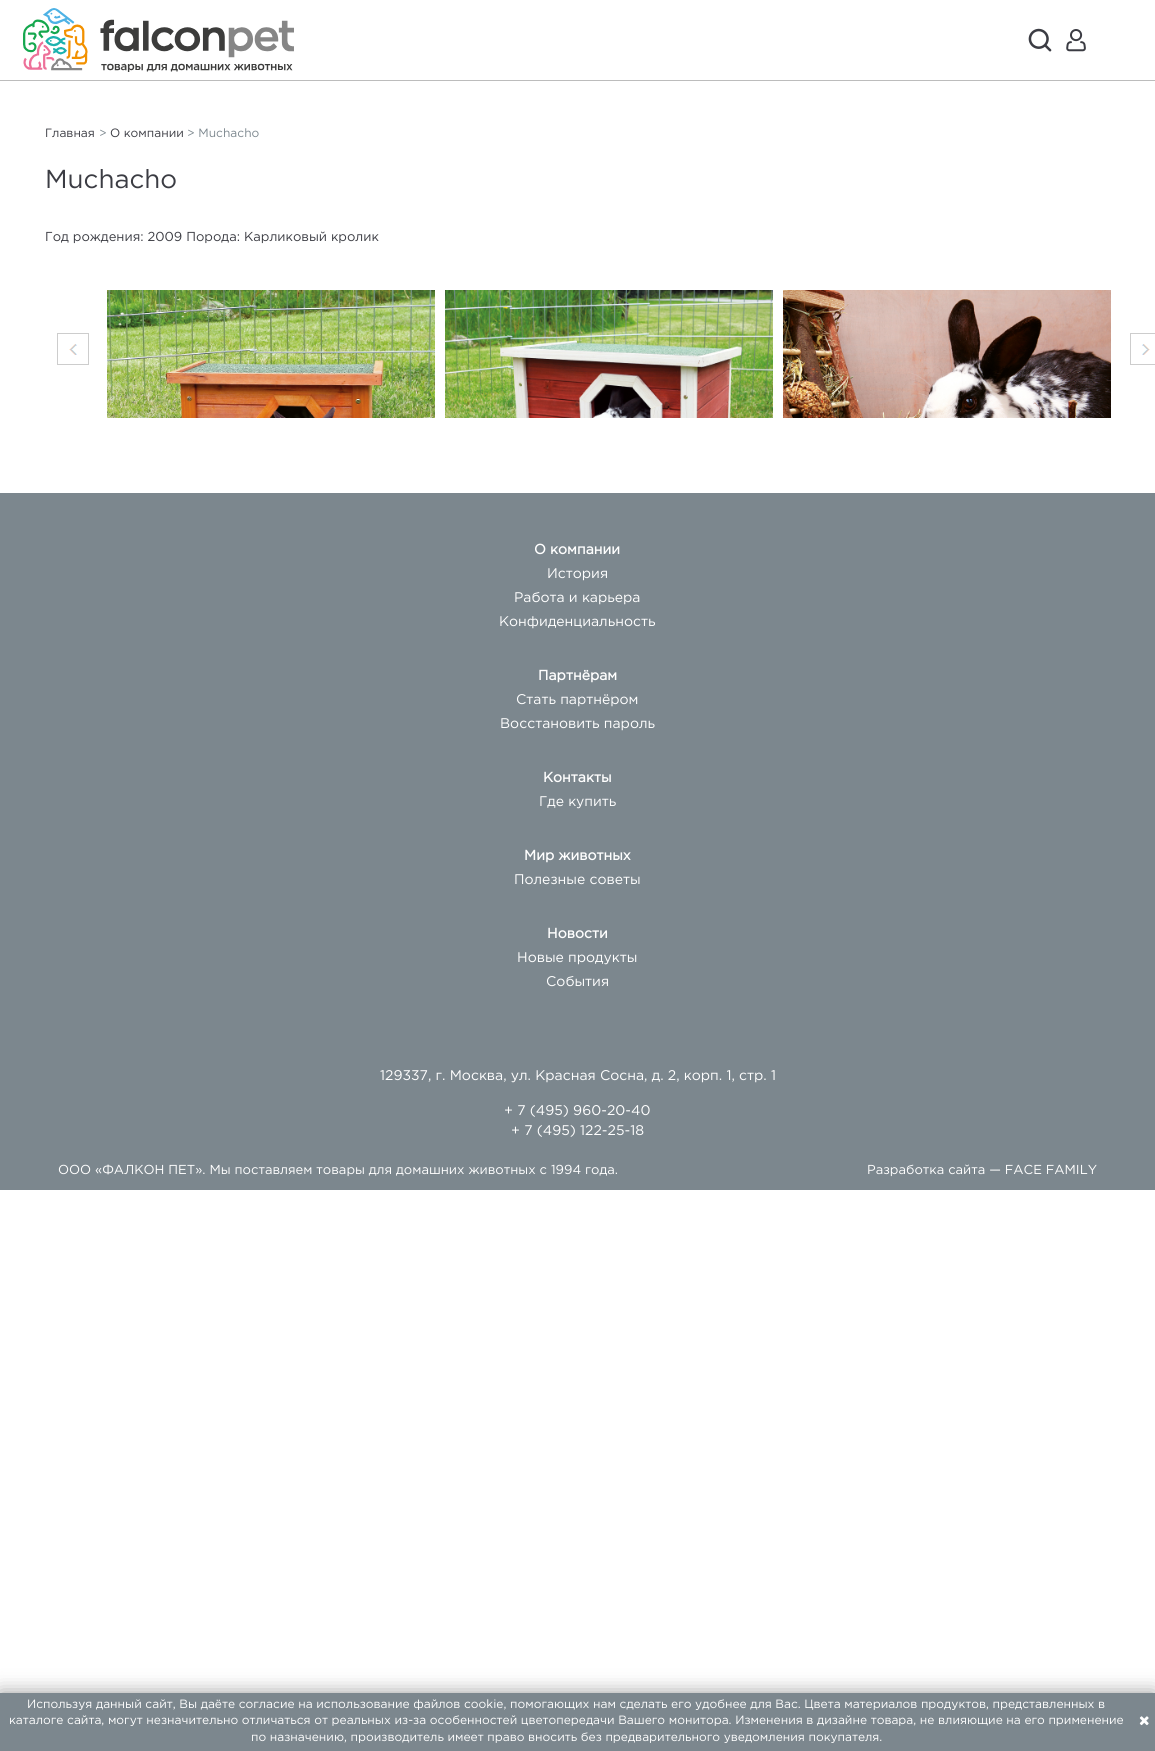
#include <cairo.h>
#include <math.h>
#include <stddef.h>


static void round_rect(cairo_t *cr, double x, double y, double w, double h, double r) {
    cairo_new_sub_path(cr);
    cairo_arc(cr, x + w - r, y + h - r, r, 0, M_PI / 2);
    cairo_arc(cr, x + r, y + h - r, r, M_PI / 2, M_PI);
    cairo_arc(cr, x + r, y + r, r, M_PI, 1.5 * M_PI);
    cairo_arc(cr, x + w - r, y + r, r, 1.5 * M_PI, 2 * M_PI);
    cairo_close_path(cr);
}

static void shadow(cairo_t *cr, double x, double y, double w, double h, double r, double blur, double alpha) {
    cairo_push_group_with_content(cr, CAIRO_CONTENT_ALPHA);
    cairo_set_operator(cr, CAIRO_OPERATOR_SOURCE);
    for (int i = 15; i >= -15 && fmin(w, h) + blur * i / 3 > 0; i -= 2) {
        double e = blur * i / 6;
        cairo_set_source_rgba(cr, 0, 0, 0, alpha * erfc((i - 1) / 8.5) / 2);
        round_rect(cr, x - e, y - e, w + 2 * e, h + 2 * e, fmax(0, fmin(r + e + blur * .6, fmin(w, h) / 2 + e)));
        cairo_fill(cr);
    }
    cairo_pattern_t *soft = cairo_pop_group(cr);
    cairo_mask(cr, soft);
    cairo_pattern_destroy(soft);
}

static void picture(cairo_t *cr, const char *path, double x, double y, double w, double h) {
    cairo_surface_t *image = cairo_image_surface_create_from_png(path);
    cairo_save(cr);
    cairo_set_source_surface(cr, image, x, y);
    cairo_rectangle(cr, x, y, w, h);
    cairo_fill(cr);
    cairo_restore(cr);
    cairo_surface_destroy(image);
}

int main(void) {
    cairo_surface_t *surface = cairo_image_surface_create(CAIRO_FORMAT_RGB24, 1155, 1751);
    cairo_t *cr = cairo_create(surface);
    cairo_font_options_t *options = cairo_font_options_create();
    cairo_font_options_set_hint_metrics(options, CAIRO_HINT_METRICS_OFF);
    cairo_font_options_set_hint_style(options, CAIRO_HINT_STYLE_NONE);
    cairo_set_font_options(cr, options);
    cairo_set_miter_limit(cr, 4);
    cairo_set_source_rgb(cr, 1, 1, 1);
    cairo_paint(cr);
    cairo_set_source_rgb(cr, 0.737, 0.737, 0.737);
    cairo_rectangle(cr, 0, 80, 1155, 1);
    cairo_fill(cr);
    picture(cr, "img1.png", 23, 8, 271, 64);
    picture(cr, "img2.png", 1028, 28, 24, 24);
    picture(cr, "img3.png", 1066, 29, 20, 23);
    cairo_select_font_face(cr, "Gotham", CAIRO_FONT_SLANT_NORMAL, CAIRO_FONT_WEIGHT_NORMAL);
    cairo_set_font_size(cr, 12);
    cairo_set_source_rgb(cr, 0.231, 0.235, 0.263);
    cairo_move_to(cr, 45, 137);
    cairo_show_text(cr, "Главная");
    cairo_set_source_rgb(cr, 0.486, 0.529, 0.557);
    cairo_move_to(cr, 99, 137);
    cairo_show_text(cr, ">");
    cairo_set_source_rgb(cr, 0.231, 0.235, 0.263);
    cairo_move_to(cr, 110, 137);
    cairo_show_text(cr, "О компании");
    cairo_set_source_rgb(cr, 0.486, 0.529, 0.557);
    cairo_move_to(cr, 187, 137);
    cairo_show_text(cr, "> Muchacho");
    cairo_set_font_size(cr, 26);
    cairo_set_source_rgb(cr, 0.231, 0.235, 0.263);
    cairo_move_to(cr, 45, 188);
    cairo_show_text(cr, "Muchacho");
    cairo_set_font_size(cr, 13);
    cairo_move_to(cr, 45, 241);
    cairo_show_text(cr, "Год рождения: 2009 Порода: Карликовый кролик");
    picture(cr, "img4.png", 57, 333, 32, 32);
    picture(cr, "img5.png", 107, 290, 328, 128);
    picture(cr, "img6.png", 445, 290, 328, 128);
    picture(cr, "img7.png", 783, 290, 328, 128);
    picture(cr, "img8.png", 1130, 333, 25, 32);
    cairo_set_source_rgb(cr, 0.486, 0.529, 0.557);
    cairo_rectangle(cr, 0, 493, 1155, 697);
    cairo_fill(cr);
    cairo_select_font_face(cr, "Gotham", CAIRO_FONT_SLANT_NORMAL, CAIRO_FONT_WEIGHT_BOLD);
    cairo_set_font_size(cr, 14);
    cairo_set_source_rgb(cr, 1, 1, 1);
    cairo_move_to(cr, 534, 554);
    cairo_show_text(cr, "О компании");
    cairo_select_font_face(cr, "Gotham", CAIRO_FONT_SLANT_NORMAL, CAIRO_FONT_WEIGHT_NORMAL);
    cairo_move_to(cr, 547, 578);
    cairo_show_text(cr, "История");
    cairo_move_to(cr, 514, 602);
    cairo_show_text(cr, "Работа и карьера");
    cairo_move_to(cr, 499, 626);
    cairo_show_text(cr, "Конфиденциальность");
    cairo_select_font_face(cr, "Gotham", CAIRO_FONT_SLANT_NORMAL, CAIRO_FONT_WEIGHT_BOLD);
    cairo_move_to(cr, 538, 680);
    cairo_show_text(cr, "Партнёрам");
    cairo_select_font_face(cr, "Gotham", CAIRO_FONT_SLANT_NORMAL, CAIRO_FONT_WEIGHT_NORMAL);
    cairo_move_to(cr, 516, 704);
    cairo_show_text(cr, "Стать партнёром");
    cairo_move_to(cr, 500, 728);
    cairo_show_text(cr, "Восстановить пароль");
    cairo_select_font_face(cr, "Gotham", CAIRO_FONT_SLANT_NORMAL, CAIRO_FONT_WEIGHT_BOLD);
    cairo_move_to(cr, 543, 782);
    cairo_show_text(cr, "Контакты");
    cairo_select_font_face(cr, "Gotham", CAIRO_FONT_SLANT_NORMAL, CAIRO_FONT_WEIGHT_NORMAL);
    cairo_move_to(cr, 539, 806);
    cairo_show_text(cr, "Где купить");
    cairo_select_font_face(cr, "Gotham", CAIRO_FONT_SLANT_NORMAL, CAIRO_FONT_WEIGHT_BOLD);
    cairo_move_to(cr, 524, 860);
    cairo_show_text(cr, "Мир животных");
    cairo_select_font_face(cr, "Gotham", CAIRO_FONT_SLANT_NORMAL, CAIRO_FONT_WEIGHT_NORMAL);
    cairo_move_to(cr, 514, 884);
    cairo_show_text(cr, "Полезные советы");
    cairo_select_font_face(cr, "Gotham", CAIRO_FONT_SLANT_NORMAL, CAIRO_FONT_WEIGHT_BOLD);
    cairo_move_to(cr, 547, 938);
    cairo_show_text(cr, "Новости");
    cairo_select_font_face(cr, "Gotham", CAIRO_FONT_SLANT_NORMAL, CAIRO_FONT_WEIGHT_NORMAL);
    cairo_move_to(cr, 517, 962);
    cairo_show_text(cr, "Новые продукты");
    cairo_move_to(cr, 546, 986);
    cairo_show_text(cr, "События");
    cairo_move_to(cr, 380, 1080);
    cairo_show_text(cr, "129337, г. Москва, ул. Красная Сосна, д. 2, корп. 1, стр. 1");
    cairo_move_to(cr, 504, 1115);
    cairo_show_text(cr, "+ 7 (495) 960-20-40");
    cairo_move_to(cr, 511, 1135);
    cairo_show_text(cr, "+ 7 (495) 122-25-18");
    cairo_set_font_size(cr, 13);
    cairo_move_to(cr, 58, 1174);
    cairo_show_text(cr, "ООО «ФАЛКОН ПЕТ». Мы поставляем товары для домашних животных с 1994 года.");
    cairo_move_to(cr, 867, 1174);
    cairo_show_text(cr, "Разработка сайта — FACE FAMILY");
    cairo_set_source_rgb(cr, 0, 0, 0);
    shadow(cr, 0, 1693, 1155, 58, 0, 10, 0.4);
    cairo_set_source_rgb(cr, 0.486, 0.529, 0.557);
    cairo_rectangle(cr, 0, 1693, 1155, 58);
    cairo_fill(cr);
    cairo_set_font_size(cr, 12);
    cairo_set_source_rgb(cr, 1, 1, 1);
    cairo_move_to(cr, 27, 1708);
    cairo_show_text(cr, "Используя данный сайт, Вы даёте согласие на использование файлов cookie, помогающих нам сделать его удобнее для Вас. Цвета материалов продуктов, представленных в");
    cairo_move_to(cr, 9, 1724);
    cairo_show_text(cr, "каталоге сайта, могут незначительно отличаться от реальных из-за особенностей цветопередачи Вашего монитора. Изменения в дизайне товара, не влияющие на его применение");
    cairo_move_to(cr, 251, 1741);
    cairo_show_text(cr, "по назначению, производитель имеет право вносить без предварительного уведомления покупателя.");
    picture(cr, "img9.png", 1139, 1716, 10, 10);
    cairo_surface_write_to_png(surface, "page.png");
    cairo_font_options_destroy(options);
    cairo_destroy(cr);
    cairo_surface_destroy(surface);
    return 0;
}
